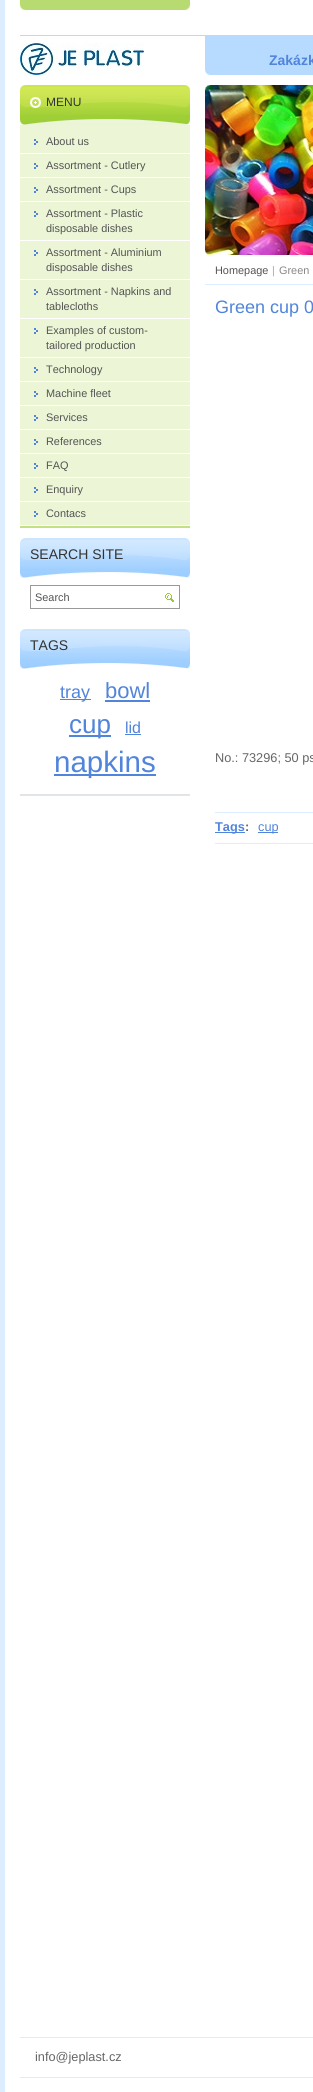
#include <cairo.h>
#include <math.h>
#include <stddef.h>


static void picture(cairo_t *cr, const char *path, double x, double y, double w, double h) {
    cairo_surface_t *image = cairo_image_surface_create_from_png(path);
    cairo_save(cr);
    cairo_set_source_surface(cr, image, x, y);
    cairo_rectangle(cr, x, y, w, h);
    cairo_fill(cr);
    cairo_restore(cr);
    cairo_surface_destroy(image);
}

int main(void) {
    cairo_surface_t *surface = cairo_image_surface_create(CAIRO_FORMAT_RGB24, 313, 2092);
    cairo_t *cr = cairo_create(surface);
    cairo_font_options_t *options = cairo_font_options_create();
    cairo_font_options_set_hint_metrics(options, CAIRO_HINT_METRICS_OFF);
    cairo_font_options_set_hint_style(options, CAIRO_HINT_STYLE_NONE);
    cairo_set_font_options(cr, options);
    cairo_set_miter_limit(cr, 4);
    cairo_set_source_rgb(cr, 1, 1, 1);
    cairo_paint(cr);
    picture(cr, "img1.png", 20, 0, 170, 10);
    cairo_set_source_rgb(cr, 0.859, 0.929, 1);
    cairo_rectangle(cr, 0, 0, 5, 2092);
    cairo_fill(cr);
    picture(cr, "img2.png", 20, 35, 293, 6);
    picture(cr, "img3.png", 20, 43, 124, 32);
    cairo_set_source_rgb(cr, 0.718, 0.859, 1);
    cairo_rectangle(cr, 205, 41, 108, 34);
    cairo_fill(cr);
    picture(cr, "img4.png", 205, 70, 5, 5);
    cairo_select_font_face(cr, "Liberation Sans", CAIRO_FONT_SLANT_NORMAL, CAIRO_FONT_WEIGHT_BOLD);
    cairo_set_font_size(cr, 14);
    cairo_set_source_rgb(cr, 0.318, 0.518, 0.859);
    cairo_move_to(cr, 269, 65);
    cairo_show_text(cr, "Zakázk");
    cairo_set_source_rgb(cr, 0.761, 0.878, 0.518);
    cairo_rectangle(cr, 20, 526, 170, 2);
    cairo_fill(cr);
    cairo_set_source_rgb(cr, 0.922, 0.961, 0.839);
    cairo_rectangle(cr, 20, 125, 170, 400);
    cairo_fill(cr);
    cairo_set_source_rgb(cr, 0.624, 0.812, 0.212);
    cairo_rectangle(cr, 20, 115, 170, 4);
    cairo_fill(cr);
    picture(cr, "img5.png", 20, 85, 170, 30);
    picture(cr, "img6.png", 20, 119, 170, 6);
    cairo_select_font_face(cr, "Liberation Sans", CAIRO_FONT_SLANT_NORMAL, CAIRO_FONT_WEIGHT_NORMAL);
    cairo_set_font_size(cr, 12);
    cairo_set_source_rgb(cr, 0.2, 0.2, 0.2);
    cairo_move_to(cr, 46, 106);
    cairo_show_text(cr, "MENU");
    picture(cr, "img7.png", 34, 139, 4, 6);
    cairo_set_source_rgb(cr, 1, 1, 1);
    cairo_rectangle(cr, 20, 153, 170, 1);
    cairo_fill(cr);
    cairo_set_font_size(cr, 10.9);
    cairo_set_source_rgb(cr, 0.325, 0.325, 0.325);
    cairo_move_to(cr, 46, 145);
    cairo_show_text(cr, "About us");
    picture(cr, "img7.png", 34, 163, 4, 6);
    cairo_set_source_rgb(cr, 1, 1, 1);
    cairo_rectangle(cr, 20, 177, 170, 1);
    cairo_fill(cr);
    cairo_set_source_rgb(cr, 0.325, 0.325, 0.325);
    cairo_move_to(cr, 46, 169);
    cairo_show_text(cr, "Assortment - Cutlery");
    picture(cr, "img7.png", 34, 187, 4, 6);
    cairo_set_source_rgb(cr, 1, 1, 1);
    cairo_rectangle(cr, 20, 201, 170, 1);
    cairo_fill(cr);
    cairo_set_source_rgb(cr, 0.325, 0.325, 0.325);
    cairo_move_to(cr, 46, 193);
    cairo_show_text(cr, "Assortment - Cups");
    picture(cr, "img7.png", 34, 211, 4, 6);
    cairo_set_source_rgb(cr, 1, 1, 1);
    cairo_rectangle(cr, 20, 240, 170, 1);
    cairo_fill(cr);
    cairo_set_source_rgb(cr, 0.325, 0.325, 0.325);
    cairo_move_to(cr, 46, 217);
    cairo_show_text(cr, "Assortment - Plastic");
    cairo_move_to(cr, 46, 232);
    cairo_show_text(cr, "disposable dishes");
    picture(cr, "img7.png", 34, 250, 4, 6);
    cairo_set_source_rgb(cr, 1, 1, 1);
    cairo_rectangle(cr, 20, 279, 170, 1);
    cairo_fill(cr);
    cairo_set_source_rgb(cr, 0.325, 0.325, 0.325);
    cairo_move_to(cr, 46, 256);
    cairo_show_text(cr, "Assortment - Aluminium");
    cairo_move_to(cr, 46, 271);
    cairo_show_text(cr, "disposable dishes");
    picture(cr, "img7.png", 34, 289, 4, 6);
    cairo_set_source_rgb(cr, 1, 1, 1);
    cairo_rectangle(cr, 20, 318, 170, 1);
    cairo_fill(cr);
    cairo_set_source_rgb(cr, 0.325, 0.325, 0.325);
    cairo_move_to(cr, 46, 295);
    cairo_show_text(cr, "Assortment - Napkins and");
    cairo_move_to(cr, 46, 310);
    cairo_show_text(cr, "tablecloths");
    picture(cr, "img7.png", 34, 328, 4, 6);
    cairo_set_source_rgb(cr, 1, 1, 1);
    cairo_rectangle(cr, 20, 357, 170, 1);
    cairo_fill(cr);
    cairo_set_source_rgb(cr, 0.325, 0.325, 0.325);
    cairo_move_to(cr, 46, 334);
    cairo_show_text(cr, "Examples of custom-");
    cairo_move_to(cr, 46, 349);
    cairo_show_text(cr, "tailored production");
    picture(cr, "img7.png", 34, 367, 4, 6);
    cairo_set_source_rgb(cr, 1, 1, 1);
    cairo_rectangle(cr, 20, 381, 170, 1);
    cairo_fill(cr);
    cairo_set_source_rgb(cr, 0.325, 0.325, 0.325);
    cairo_move_to(cr, 46, 373);
    cairo_show_text(cr, "Technology");
    picture(cr, "img7.png", 34, 391, 4, 6);
    cairo_set_source_rgb(cr, 1, 1, 1);
    cairo_rectangle(cr, 20, 405, 170, 1);
    cairo_fill(cr);
    cairo_set_source_rgb(cr, 0.325, 0.325, 0.325);
    cairo_move_to(cr, 46, 397);
    cairo_show_text(cr, "Machine fleet");
    picture(cr, "img7.png", 34, 415, 4, 6);
    cairo_set_source_rgb(cr, 1, 1, 1);
    cairo_rectangle(cr, 20, 429, 170, 1);
    cairo_fill(cr);
    cairo_set_source_rgb(cr, 0.325, 0.325, 0.325);
    cairo_move_to(cr, 46, 421);
    cairo_show_text(cr, "Services");
    picture(cr, "img7.png", 34, 439, 4, 6);
    cairo_set_source_rgb(cr, 1, 1, 1);
    cairo_rectangle(cr, 20, 453, 170, 1);
    cairo_fill(cr);
    cairo_set_source_rgb(cr, 0.325, 0.325, 0.325);
    cairo_move_to(cr, 46, 445);
    cairo_show_text(cr, "References");
    picture(cr, "img7.png", 34, 463, 4, 6);
    cairo_set_source_rgb(cr, 1, 1, 1);
    cairo_rectangle(cr, 20, 477, 170, 1);
    cairo_fill(cr);
    cairo_set_source_rgb(cr, 0.325, 0.325, 0.325);
    cairo_move_to(cr, 46, 469);
    cairo_show_text(cr, "FAQ");
    picture(cr, "img7.png", 34, 487, 4, 6);
    cairo_set_source_rgb(cr, 1, 1, 1);
    cairo_rectangle(cr, 20, 501, 170, 1);
    cairo_fill(cr);
    cairo_set_source_rgb(cr, 0.325, 0.325, 0.325);
    cairo_move_to(cr, 46, 493);
    cairo_show_text(cr, "Enquiry");
    picture(cr, "img7.png", 34, 511, 4, 6);
    cairo_move_to(cr, 46, 517);
    cairo_show_text(cr, "Contacs");
    cairo_set_source_rgb(cr, 0.624, 0.812, 1);
    cairo_rectangle(cr, 20, 569, 170, 4);
    cairo_fill(cr);
    picture(cr, "img8.png", 20, 538, 170, 31);
    picture(cr, "img9.png", 20, 572, 170, 6);
    cairo_set_font_size(cr, 14);
    cairo_set_source_rgb(cr, 0.2, 0.2, 0.2);
    cairo_move_to(cr, 30, 559);
    cairo_show_text(cr, "SEARCH SITE");
    cairo_rectangle(cr, 30.5, 585.5, 149, 23);
    cairo_set_source_rgb(cr, 0.6, 0.6, 0.6);
    cairo_set_line_width(cr, 1);
    cairo_stroke(cr);
    cairo_set_font_size(cr, 10.9);
    cairo_set_source_rgb(cr, 0.325, 0.325, 0.325);
    cairo_move_to(cr, 35, 601);
    cairo_show_text(cr, "Search");
    picture(cr, "img10.png", 165, 593, 9, 9);
    cairo_set_source_rgb(cr, 0.886, 0.898, 0.91);
    cairo_rectangle(cr, 20, 794, 170, 2);
    cairo_fill(cr);
    cairo_set_source_rgb(cr, 0.624, 0.812, 1);
    cairo_rectangle(cr, 20, 660, 170, 4);
    cairo_fill(cr);
    picture(cr, "img8.png", 20, 629, 170, 31);
    picture(cr, "img9.png", 20, 663, 170, 6);
    cairo_set_font_size(cr, 14);
    cairo_set_source_rgb(cr, 0.2, 0.2, 0.2);
    cairo_move_to(cr, 30, 650);
    cairo_show_text(cr, "TAGS");
    cairo_set_source_rgb(cr, 0.318, 0.518, 0.859);
    cairo_rectangle(cr, 60, 699, 31, 1);
    cairo_fill(cr);
    cairo_set_font_size(cr, 18);
    cairo_move_to(cr, 60, 698);
    cairo_show_text(cr, "tray");
    cairo_set_font_size(cr, 22);
    cairo_move_to(cr, 105, 698);
    cairo_show_text(cr, "bowl");
    cairo_rectangle(cr, 105, 700, 45, 2);
    cairo_fill(cr);
    cairo_rectangle(cr, 69, 735, 42, 2);
    cairo_fill(cr);
    cairo_set_font_size(cr, 26);
    cairo_move_to(cr, 69, 733);
    cairo_show_text(cr, "cup");
    cairo_set_font_size(cr, 16);
    cairo_move_to(cr, 125, 733);
    cairo_show_text(cr, "lid");
    cairo_rectangle(cr, 125, 734, 16, 1);
    cairo_fill(cr);
    cairo_rectangle(cr, 54, 774, 102, 2);
    cairo_fill(cr);
    cairo_set_font_size(cr, 29.5);
    cairo_move_to(cr, 54, 772);
    cairo_show_text(cr, "napkins");
    picture(cr, "img11.png", 205, 85, 108, 170);
    picture(cr, "img12.png", 205, 85, 5, 170);
    cairo_set_source_rgb(cr, 0.859, 0.929, 1);
    cairo_rectangle(cr, 205, 284, 108, 1);
    cairo_fill(cr);
    cairo_set_font_size(cr, 10.9);
    cairo_set_source_rgb(cr, 0.325, 0.325, 0.325);
    cairo_move_to(cr, 215, 274);
    cairo_show_text(cr, "Homepage");
    cairo_set_source_rgb(cr, 0.6, 0.8, 0.2);
    cairo_move_to(cr, 272, 274);
    cairo_show_text(cr, "|");
    cairo_set_source_rgb(cr, 0.529, 0.529, 0.529);
    cairo_move_to(cr, 279, 274);
    cairo_show_text(cr, "Green");
    cairo_set_font_size(cr, 18);
    cairo_set_source_rgb(cr, 0.318, 0.518, 0.859);
    cairo_move_to(cr, 215, 313);
    cairo_show_text(cr, "Green cup 0");
    cairo_set_font_size(cr, 12.75);
    cairo_set_source_rgb(cr, 0.4, 0.4, 0.4);
    cairo_move_to(cr, 215, 762);
    cairo_show_text(cr, "No.: 73296; 50 ps");
    cairo_set_source_rgb(cr, 0.859, 0.929, 1);
    cairo_rectangle(cr, 215, 812, 98, 1);
    cairo_fill(cr);
    cairo_rectangle(cr, 215, 843, 98, 1);
    cairo_fill(cr);
    cairo_set_source_rgb(cr, 0.318, 0.518, 0.859);
    cairo_rectangle(cr, 215, 832, 30, 1);
    cairo_fill(cr);
    cairo_select_font_face(cr, "Liberation Sans", CAIRO_FONT_SLANT_NORMAL, CAIRO_FONT_WEIGHT_BOLD);
    cairo_move_to(cr, 215, 831);
    cairo_show_text(cr, "Tags");
    cairo_set_source_rgb(cr, 0.4, 0.4, 0.4);
    cairo_move_to(cr, 245, 831);
    cairo_show_text(cr, ":");
    cairo_set_source_rgb(cr, 0.318, 0.518, 0.859);
    cairo_rectangle(cr, 258, 832, 20, 1);
    cairo_fill(cr);
    cairo_select_font_face(cr, "Liberation Sans", CAIRO_FONT_SLANT_NORMAL, CAIRO_FONT_WEIGHT_NORMAL);
    cairo_move_to(cr, 258, 831);
    cairo_show_text(cr, "cup");
    cairo_set_source_rgb(cr, 0.859, 0.929, 1);
    cairo_rectangle(cr, 20, 2037, 293, 1);
    cairo_fill(cr);
    cairo_rectangle(cr, 20, 2077, 293, 1);
    cairo_fill(cr);
    cairo_set_source_rgb(cr, 0.4, 0.4, 0.4);
    cairo_move_to(cr, 35, 2061);
    cairo_show_text(cr, "info@jeplast.cz");
    cairo_surface_write_to_png(surface, "page.png");
    cairo_font_options_destroy(options);
    cairo_destroy(cr);
    cairo_surface_destroy(surface);
    return 0;
}
